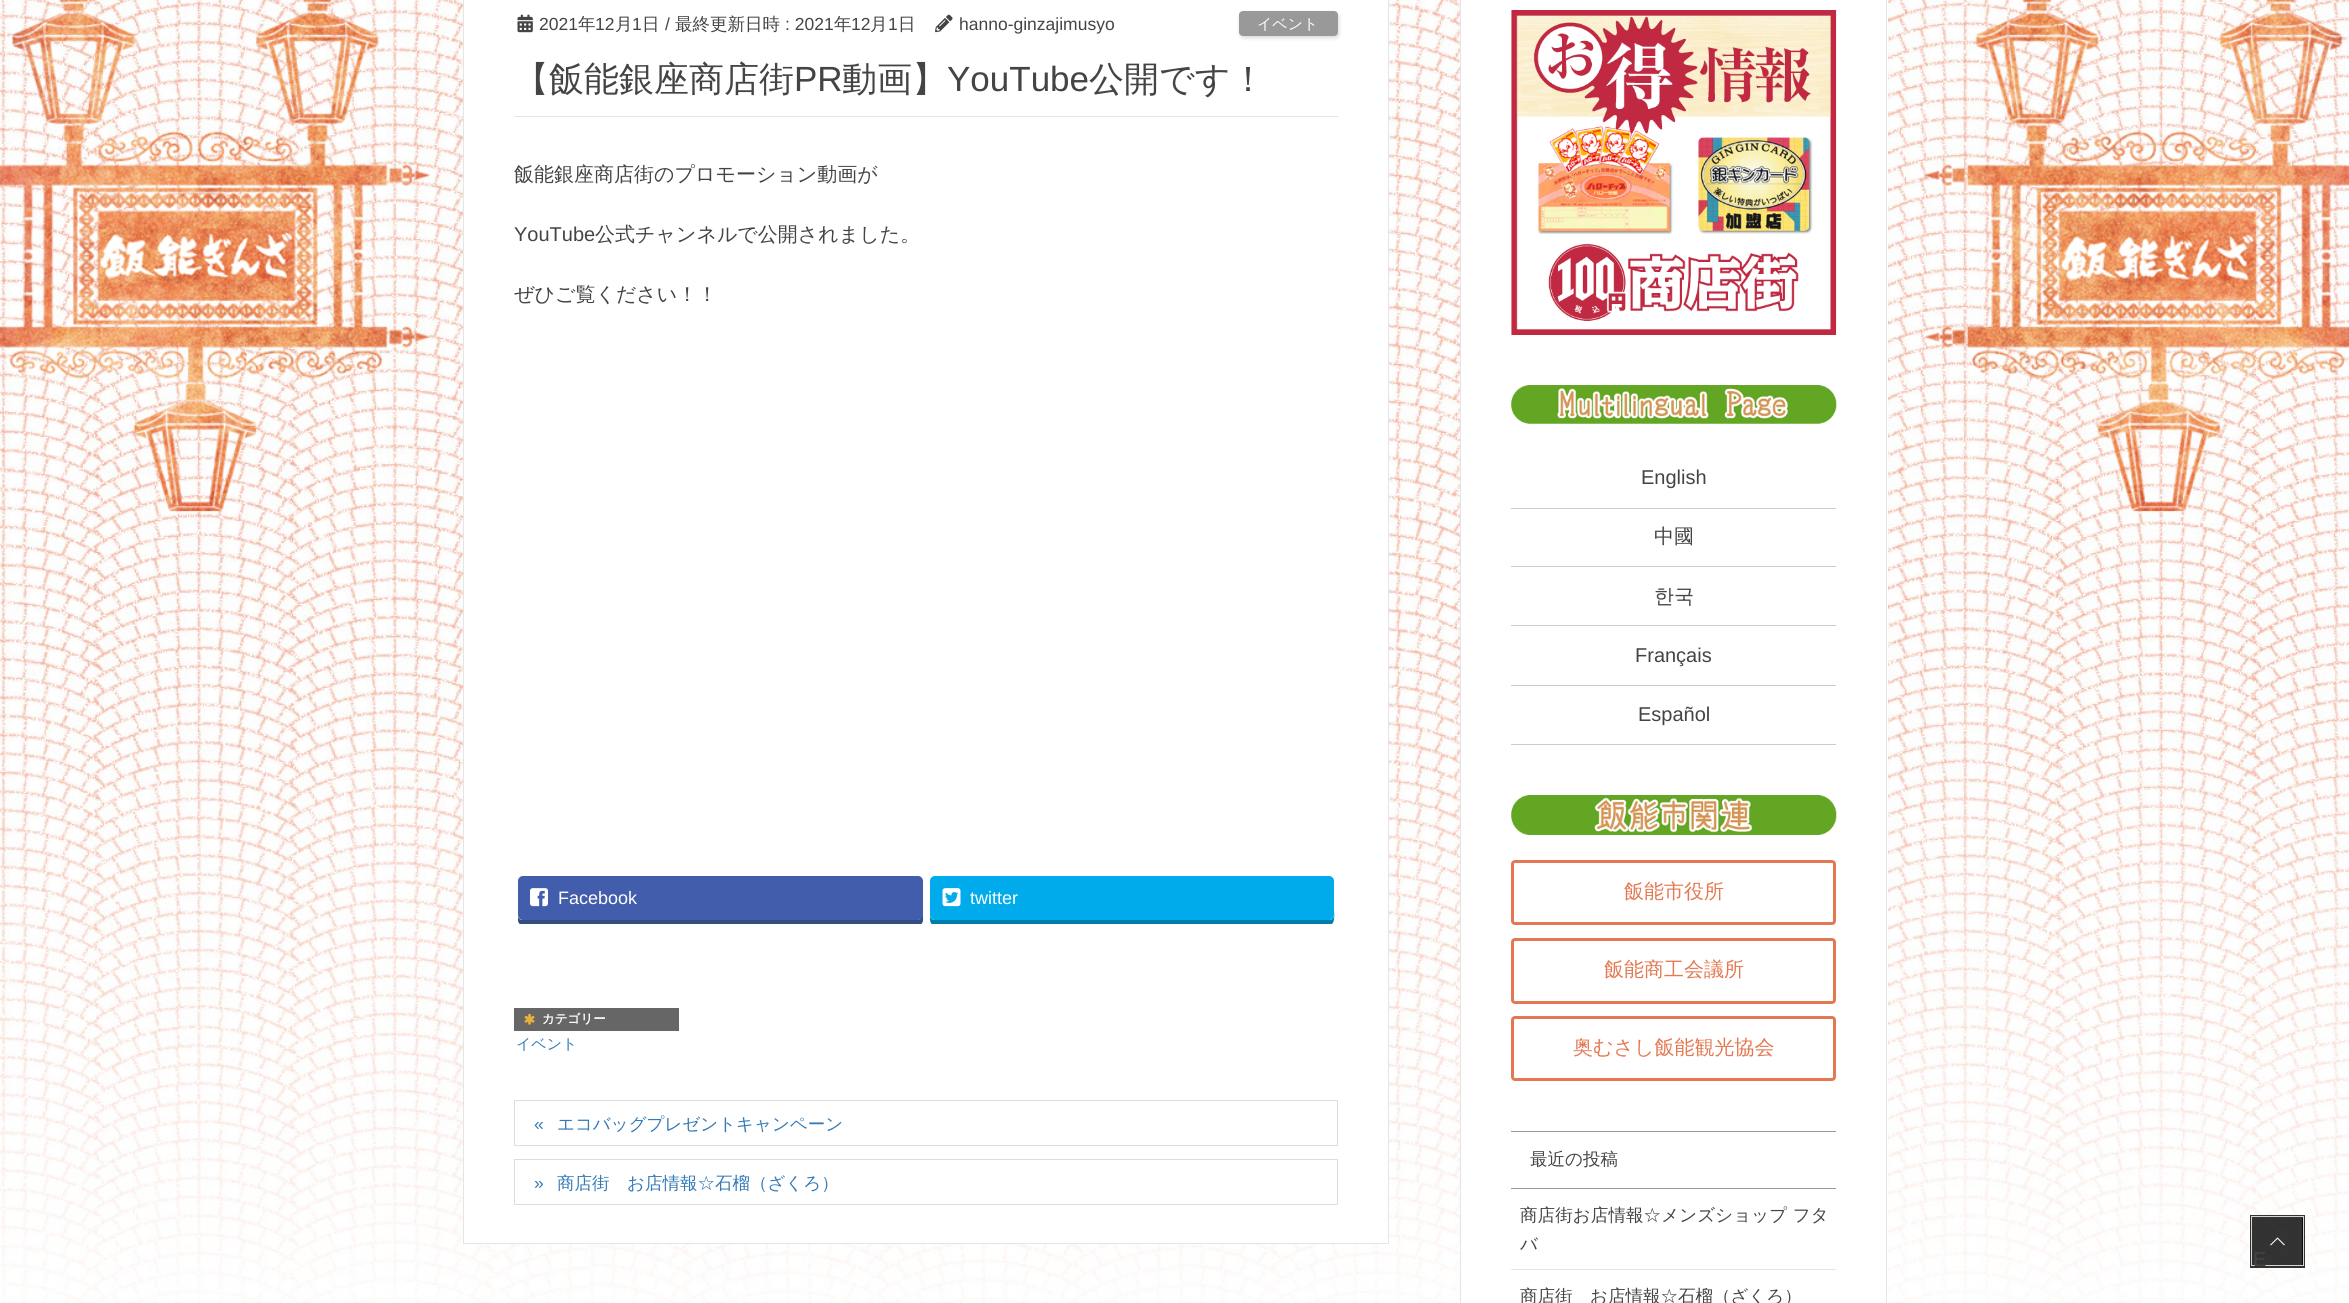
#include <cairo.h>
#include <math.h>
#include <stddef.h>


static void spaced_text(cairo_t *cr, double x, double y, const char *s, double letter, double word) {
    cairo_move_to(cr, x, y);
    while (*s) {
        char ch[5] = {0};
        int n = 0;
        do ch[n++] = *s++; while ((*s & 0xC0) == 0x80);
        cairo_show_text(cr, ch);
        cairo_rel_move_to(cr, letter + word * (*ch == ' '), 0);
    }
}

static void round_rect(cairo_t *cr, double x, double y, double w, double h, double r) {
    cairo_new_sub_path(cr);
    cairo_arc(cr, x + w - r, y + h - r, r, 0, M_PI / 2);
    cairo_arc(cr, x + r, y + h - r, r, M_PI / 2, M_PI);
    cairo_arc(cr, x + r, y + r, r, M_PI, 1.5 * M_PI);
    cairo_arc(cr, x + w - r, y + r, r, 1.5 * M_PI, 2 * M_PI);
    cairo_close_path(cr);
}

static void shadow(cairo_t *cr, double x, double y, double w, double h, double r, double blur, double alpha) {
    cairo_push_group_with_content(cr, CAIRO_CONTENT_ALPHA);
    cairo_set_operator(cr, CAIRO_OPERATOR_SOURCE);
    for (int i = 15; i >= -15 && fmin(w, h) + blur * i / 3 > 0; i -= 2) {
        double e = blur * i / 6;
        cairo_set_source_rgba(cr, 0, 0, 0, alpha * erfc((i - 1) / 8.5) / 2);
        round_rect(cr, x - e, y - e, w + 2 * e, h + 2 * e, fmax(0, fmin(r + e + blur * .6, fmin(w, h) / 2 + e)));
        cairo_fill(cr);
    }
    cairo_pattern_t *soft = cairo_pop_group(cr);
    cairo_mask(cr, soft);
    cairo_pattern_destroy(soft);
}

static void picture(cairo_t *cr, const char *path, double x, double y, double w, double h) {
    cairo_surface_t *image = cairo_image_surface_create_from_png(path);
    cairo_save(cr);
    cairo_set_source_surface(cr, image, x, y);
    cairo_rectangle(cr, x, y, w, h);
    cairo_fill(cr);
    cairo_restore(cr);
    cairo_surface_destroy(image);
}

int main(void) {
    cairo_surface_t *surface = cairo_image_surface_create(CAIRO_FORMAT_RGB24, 2349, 1303);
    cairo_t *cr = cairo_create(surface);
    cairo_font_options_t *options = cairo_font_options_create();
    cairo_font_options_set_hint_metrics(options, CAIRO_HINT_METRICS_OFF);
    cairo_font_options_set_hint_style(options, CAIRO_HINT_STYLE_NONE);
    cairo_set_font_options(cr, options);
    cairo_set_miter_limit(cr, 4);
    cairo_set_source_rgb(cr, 1, 1, 1);
    cairo_paint(cr);
    picture(cr, "img1.png", 0, 0, 2349, 1303);
    cairo_set_source_rgb(cr, 1, 1, 1);
    cairo_rectangle(cr, 464, 0, 924, 1243);
    cairo_fill(cr);
    cairo_set_source_rgb(cr, 0.898, 0.898, 0.898);
    cairo_rectangle(cr, 1388, 0, 1, 1244);
    cairo_fill(cr);
    cairo_rectangle(cr, 463, 1243, 926, 1);
    cairo_fill(cr);
    cairo_rectangle(cr, 463, 0, 1, 1244);
    cairo_fill(cr);
    cairo_rectangle(cr, 514, 116, 824, 1);
    cairo_fill(cr);
    picture(cr, "img2.png", 517, 14, 16, 19);
    cairo_select_font_face(cr, "Liberation Sans", CAIRO_FONT_SLANT_NORMAL, CAIRO_FONT_WEIGHT_NORMAL);
    cairo_set_font_size(cr, 17.5);
    cairo_set_source_rgb(cr, 0.267, 0.267, 0.267);
    cairo_move_to(cr, 539, 30);
    cairo_show_text(cr, "2021");
    cairo_select_font_face(cr, "WenQuanYi Zen Hei Medium", CAIRO_FONT_SLANT_NORMAL, CAIRO_FONT_WEIGHT_NORMAL);
    cairo_move_to(cr, 578, 30);
    cairo_show_text(cr, "年");
    cairo_select_font_face(cr, "Liberation Sans", CAIRO_FONT_SLANT_NORMAL, CAIRO_FONT_WEIGHT_NORMAL);
    cairo_move_to(cr, 595, 30);
    cairo_show_text(cr, "12");
    cairo_select_font_face(cr, "WenQuanYi Zen Hei Medium", CAIRO_FONT_SLANT_NORMAL, CAIRO_FONT_WEIGHT_NORMAL);
    cairo_move_to(cr, 615, 30);
    cairo_show_text(cr, "月");
    cairo_select_font_face(cr, "Liberation Sans", CAIRO_FONT_SLANT_NORMAL, CAIRO_FONT_WEIGHT_NORMAL);
    cairo_move_to(cr, 632, 30);
    cairo_show_text(cr, "1");
    cairo_select_font_face(cr, "WenQuanYi Zen Hei Medium", CAIRO_FONT_SLANT_NORMAL, CAIRO_FONT_WEIGHT_NORMAL);
    cairo_move_to(cr, 642, 30);
    cairo_show_text(cr, "日");
    cairo_select_font_face(cr, "Liberation Sans", CAIRO_FONT_SLANT_NORMAL, CAIRO_FONT_WEIGHT_NORMAL);
    cairo_move_to(cr, 665, 30);
    cairo_show_text(cr, "/");
    cairo_select_font_face(cr, "WenQuanYi Zen Hei Medium", CAIRO_FONT_SLANT_NORMAL, CAIRO_FONT_WEIGHT_NORMAL);
    cairo_move_to(cr, 675, 30);
    cairo_show_text(cr, "最終更新日時");
    cairo_select_font_face(cr, "Liberation Sans", CAIRO_FONT_SLANT_NORMAL, CAIRO_FONT_WEIGHT_NORMAL);
    cairo_move_to(cr, 785, 30);
    cairo_show_text(cr, ": 2021");
    cairo_select_font_face(cr, "WenQuanYi Zen Hei Medium", CAIRO_FONT_SLANT_NORMAL, CAIRO_FONT_WEIGHT_NORMAL);
    cairo_move_to(cr, 834, 30);
    cairo_show_text(cr, "年");
    cairo_select_font_face(cr, "Liberation Sans", CAIRO_FONT_SLANT_NORMAL, CAIRO_FONT_WEIGHT_NORMAL);
    cairo_move_to(cr, 851, 30);
    cairo_show_text(cr, "12");
    cairo_select_font_face(cr, "WenQuanYi Zen Hei Medium", CAIRO_FONT_SLANT_NORMAL, CAIRO_FONT_WEIGHT_NORMAL);
    cairo_move_to(cr, 870, 30);
    cairo_show_text(cr, "月");
    cairo_select_font_face(cr, "Liberation Sans", CAIRO_FONT_SLANT_NORMAL, CAIRO_FONT_WEIGHT_NORMAL);
    cairo_move_to(cr, 888, 30);
    cairo_show_text(cr, "1");
    cairo_select_font_face(cr, "WenQuanYi Zen Hei Medium", CAIRO_FONT_SLANT_NORMAL, CAIRO_FONT_WEIGHT_NORMAL);
    cairo_move_to(cr, 898, 30);
    cairo_show_text(cr, "日");
    picture(cr, "img3.png", 935, 14, 18, 19);
    cairo_select_font_face(cr, "Liberation Sans", CAIRO_FONT_SLANT_NORMAL, CAIRO_FONT_WEIGHT_NORMAL);
    cairo_move_to(cr, 959, 30);
    cairo_show_text(cr, "hanno-ginzajimusyo");
    cairo_set_source_rgb(cr, 0, 0, 0);
    shadow(cr, 1240, 13, 99, 25, 4, 2, 0.15);
    cairo_set_source_rgb(cr, 0.6, 0.6, 0.6);
    round_rect(cr, 1239, 11, 99, 25, 4);
    cairo_fill(cr);
    cairo_select_font_face(cr, "WenQuanYi Zen Hei Medium", CAIRO_FONT_SLANT_NORMAL, CAIRO_FONT_WEIGHT_NORMAL);
    cairo_set_font_size(cr, 15);
    cairo_set_source_rgb(cr, 1, 1, 1);
    cairo_move_to(cr, 1257, 29);
    cairo_show_text(cr, "イベント");
    cairo_set_font_size(cr, 35);
    cairo_set_source_rgb(cr, 0.267, 0.267, 0.267);
    cairo_move_to(cr, 514, 91);
    cairo_show_text(cr, "【飯能銀座商店街");
    cairo_select_font_face(cr, "Liberation Sans", CAIRO_FONT_SLANT_NORMAL, CAIRO_FONT_WEIGHT_NORMAL);
    cairo_move_to(cr, 794, 91);
    cairo_show_text(cr, "PR");
    cairo_select_font_face(cr, "WenQuanYi Zen Hei Medium", CAIRO_FONT_SLANT_NORMAL, CAIRO_FONT_WEIGHT_NORMAL);
    cairo_move_to(cr, 842, 91);
    cairo_show_text(cr, "動画】");
    cairo_select_font_face(cr, "Liberation Sans", CAIRO_FONT_SLANT_NORMAL, CAIRO_FONT_WEIGHT_NORMAL);
    cairo_move_to(cr, 947, 91);
    cairo_show_text(cr, "YouTube");
    cairo_select_font_face(cr, "WenQuanYi Zen Hei Medium", CAIRO_FONT_SLANT_NORMAL, CAIRO_FONT_WEIGHT_NORMAL);
    cairo_move_to(cr, 1089, 91);
    cairo_show_text(cr, "公開です！");
    cairo_set_font_size(cr, 20);
    cairo_move_to(cr, 514, 181);
    cairo_show_text(cr, "飯能銀座商店街のプロモーション動画が");
    cairo_select_font_face(cr, "Liberation Sans", CAIRO_FONT_SLANT_NORMAL, CAIRO_FONT_WEIGHT_NORMAL);
    cairo_move_to(cr, 514, 241);
    cairo_show_text(cr, "YouTube");
    cairo_select_font_face(cr, "WenQuanYi Zen Hei Medium", CAIRO_FONT_SLANT_NORMAL, CAIRO_FONT_WEIGHT_NORMAL);
    cairo_move_to(cr, 595, 241);
    cairo_show_text(cr, "公式チャンネルで公開されました。");
    cairo_move_to(cr, 514, 301);
    cairo_show_text(cr, "ぜひご覧ください！！");
    cairo_save(cr);
    cairo_rectangle(cr, 514, 873, 824, 51);
    cairo_clip(cr);
    cairo_set_source_rgb(cr, 0.204, 0.306, 0.518);
    cairo_new_path(cr);
    cairo_move_to(cr, 518, 917);
    cairo_line_to(cr, 518, 920);
    cairo_curve_to(cr, 518, 923, 520, 925, 523, 925);
    cairo_line_to(cr, 918, 925);
    cairo_curve_to(cr, 921, 925, 923, 923, 923, 920);
    cairo_line_to(cr, 923, 886);
    cairo_line_to(cr, 922, 884);
    cairo_line_to(cr, 922, 915);
    cairo_curve_to(cr, 922, 918, 920, 920, 918, 920);
    cairo_line_to(cr, 522, 920);
    cairo_curve_to(cr, 521, 920, 519, 919, 518, 917);
    cairo_close_path(cr);
    cairo_fill(cr);
    cairo_restore(cr);
    cairo_set_source_rgb(cr, 0.259, 0.365, 0.671);
    round_rect(cr, 518, 876, 405, 44, 5);
    cairo_fill(cr);
    picture(cr, "img4.png", 530, 888, 18, 19);
    cairo_select_font_face(cr, "Liberation Sans", CAIRO_FONT_SLANT_NORMAL, CAIRO_FONT_WEIGHT_NORMAL);
    cairo_set_font_size(cr, 18);
    cairo_set_source_rgb(cr, 1, 1, 1);
    cairo_move_to(cr, 558, 904);
    cairo_show_text(cr, "Facebook");
    cairo_save(cr);
    cairo_rectangle(cr, 514, 873, 824, 51);
    cairo_clip(cr);
    cairo_set_source_rgb(cr, 0, 0.494, 0.667);
    cairo_new_path(cr);
    cairo_move_to(cr, 930, 915);
    cairo_curve_to(cr, 930, 919, 929, 925, 935, 925);
    cairo_line_to(cr, 1329, 925);
    cairo_curve_to(cr, 1336, 925, 1334, 913, 1334, 909);
    cairo_line_to(cr, 1334, 884);
    cairo_line_to(cr, 1334, 915);
    cairo_curve_to(cr, 1334, 918, 1332, 920, 1329, 920);
    cairo_line_to(cr, 935, 920);
    cairo_curve_to(cr, 932, 920, 930, 918, 930, 915);
    cairo_close_path(cr);
    cairo_fill(cr);
    cairo_restore(cr);
    cairo_set_source_rgb(cr, 0, 0.671, 0.925);
    round_rect(cr, 930, 876, 404, 44, 5);
    cairo_fill(cr);
    picture(cr, "img5.png", 942, 888, 19, 19);
    cairo_set_source_rgb(cr, 1, 1, 1);
    cairo_move_to(cr, 970, 904);
    cairo_show_text(cr, "twitter");
    cairo_set_source_rgb(cr, 0.4, 0.4, 0.4);
    cairo_rectangle(cr, 514, 1008, 165, 23);
    cairo_fill(cr);
    picture(cr, "img6.png", 524, 1013, 11, 12);
    cairo_select_font_face(cr, "WenQuanYi Zen Hei", CAIRO_FONT_SLANT_NORMAL, CAIRO_FONT_WEIGHT_BOLD);
    cairo_set_font_size(cr, 12.5);
    cairo_set_source_rgb(cr, 1, 1, 1);
    cairo_move_to(cr, 542, 1023);
    cairo_show_text(cr, "カテゴリー");
    cairo_select_font_face(cr, "WenQuanYi Zen Hei Medium", CAIRO_FONT_SLANT_NORMAL, CAIRO_FONT_WEIGHT_NORMAL);
    cairo_set_font_size(cr, 15);
    cairo_set_source_rgb(cr, 0.2, 0.478, 0.718);
    cairo_move_to(cr, 516, 1049);
    cairo_show_text(cr, "イベント");
    cairo_rectangle(cr, 514.5, 1100.5, 823, 45);
    cairo_set_source_rgb(cr, 0.867, 0.867, 0.867);
    cairo_set_line_width(cr, 1);
    cairo_stroke(cr);
    cairo_select_font_face(cr, "Liberation Sans", CAIRO_FONT_SLANT_NORMAL, CAIRO_FONT_WEIGHT_NORMAL);
    cairo_set_font_size(cr, 17.5);
    cairo_set_source_rgb(cr, 0.2, 0.478, 0.718);
    cairo_move_to(cr, 534, 1130);
    cairo_show_text(cr, "«");
    cairo_select_font_face(cr, "WenQuanYi Zen Hei Medium", CAIRO_FONT_SLANT_NORMAL, CAIRO_FONT_WEIGHT_NORMAL);
    cairo_move_to(cr, 557, 1130);
    cairo_show_text(cr, "エコバッグプレゼントキャンペーン");
    cairo_rectangle(cr, 514.5, 1159.5, 823, 45);
    cairo_set_source_rgb(cr, 0.867, 0.867, 0.867);
    cairo_stroke(cr);
    cairo_select_font_face(cr, "Liberation Sans", CAIRO_FONT_SLANT_NORMAL, CAIRO_FONT_WEIGHT_NORMAL);
    cairo_set_source_rgb(cr, 0.2, 0.478, 0.718);
    cairo_move_to(cr, 534, 1189);
    cairo_show_text(cr, "»");
    cairo_select_font_face(cr, "WenQuanYi Zen Hei Medium", CAIRO_FONT_SLANT_NORMAL, CAIRO_FONT_WEIGHT_NORMAL);
    cairo_move_to(cr, 557, 1189);
    cairo_show_text(cr, "商店街　お店情報☆石榴（ざくろ）");
    cairo_set_source_rgb(cr, 1, 1, 1);
    cairo_rectangle(cr, 1461, 0, 427, 1303);
    cairo_fill(cr);
    cairo_set_source_rgb(cr, 0.898, 0.898, 0.898);
    cairo_rectangle(cr, 1886, 0, 1, 1303);
    cairo_fill(cr);
    cairo_rectangle(cr, 1460, 0, 1, 1303);
    cairo_fill(cr);
    picture(cr, "img7.png", 1511, 10, 326, 325);
    picture(cr, "img8.png", 1511, 385, 326, 39);
    cairo_set_source_rgb(cr, 0.8, 0.8, 0.8);
    cairo_rectangle(cr, 1511, 508, 325, 1);
    cairo_fill(cr);
    cairo_select_font_face(cr, "Liberation Sans", CAIRO_FONT_SLANT_NORMAL, CAIRO_FONT_WEIGHT_NORMAL);
    cairo_set_font_size(cr, 20);
    cairo_set_source_rgb(cr, 0.267, 0.267, 0.267);
    cairo_move_to(cr, 1641, 484);
    cairo_show_text(cr, "English");
    cairo_set_source_rgb(cr, 0.8, 0.8, 0.8);
    cairo_rectangle(cr, 1511, 566, 325, 1);
    cairo_fill(cr);
    cairo_select_font_face(cr, "WenQuanYi Zen Hei Medium", CAIRO_FONT_SLANT_NORMAL, CAIRO_FONT_WEIGHT_NORMAL);
    cairo_set_source_rgb(cr, 0.267, 0.267, 0.267);
    cairo_move_to(cr, 1654, 543);
    cairo_show_text(cr, "中國");
    cairo_set_source_rgb(cr, 0.8, 0.8, 0.8);
    cairo_rectangle(cr, 1511, 625, 325, 1);
    cairo_fill(cr);
    cairo_set_source_rgb(cr, 0.267, 0.267, 0.267);
    cairo_move_to(cr, 1654, 603);
    cairo_show_text(cr, "한국");
    cairo_set_source_rgb(cr, 0.8, 0.8, 0.8);
    cairo_rectangle(cr, 1511, 685, 325, 1);
    cairo_fill(cr);
    cairo_select_font_face(cr, "Liberation Sans", CAIRO_FONT_SLANT_NORMAL, CAIRO_FONT_WEIGHT_NORMAL);
    cairo_set_source_rgb(cr, 0.267, 0.267, 0.267);
    cairo_move_to(cr, 1635, 662);
    cairo_show_text(cr, "Français");
    cairo_set_source_rgb(cr, 0.8, 0.8, 0.8);
    cairo_rectangle(cr, 1511, 744, 325, 1);
    cairo_fill(cr);
    cairo_set_source_rgb(cr, 0.267, 0.267, 0.267);
    cairo_move_to(cr, 1638, 721);
    cairo_show_text(cr, "Español");
    picture(cr, "img9.png", 1511, 795, 326, 40);
    round_rect(cr, 1512.5, 861.5, 322, 62, 2.5);
    cairo_set_source_rgb(cr, 0.894, 0.471, 0.322);
    cairo_set_line_width(cr, 3);
    cairo_stroke(cr);
    cairo_select_font_face(cr, "WenQuanYi Zen Hei Medium", CAIRO_FONT_SLANT_NORMAL, CAIRO_FONT_WEIGHT_NORMAL);
    cairo_move_to(cr, 1624, 898);
    cairo_show_text(cr, "飯能市役所");
    round_rect(cr, 1512.5, 939.5, 322, 63, 2.5);
    cairo_stroke(cr);
    cairo_move_to(cr, 1604, 976);
    cairo_show_text(cr, "飯能商工会議所");
    round_rect(cr, 1512.5, 1017.5, 322, 62, 2.5);
    cairo_stroke(cr);
    cairo_move_to(cr, 1573, 1054);
    cairo_show_text(cr, "奥むさし飯能観光協会");
    cairo_set_source_rgb(cr, 0.6, 0.6, 0.6);
    cairo_rectangle(cr, 1511, 1131, 325, 1);
    cairo_fill(cr);
    cairo_rectangle(cr, 1511, 1188, 325, 1);
    cairo_fill(cr);
    cairo_set_font_size(cr, 17.5);
    cairo_set_source_rgb(cr, 0.267, 0.267, 0.267);
    cairo_move_to(cr, 1530, 1165);
    cairo_show_text(cr, "最近の投稿");
    cairo_set_source_rgb(cr, 0.898, 0.898, 0.898);
    cairo_rectangle(cr, 1511, 1269, 325, 1);
    cairo_fill(cr);
    cairo_set_source_rgb(cr, 0.267, 0.267, 0.267);
    spaced_text(cr, 1520, 1221, "商店街お店情報☆メンズショップ フタ", 0.1, 0);
    cairo_move_to(cr, 1520, 1250);
    cairo_show_text(cr, "バ");
    cairo_move_to(cr, 1520, 1302);
    cairo_show_text(cr, "商店街　お店情報☆石榴（ざくろ）");
    cairo_rectangle(cr, 2251.5, 1216.5, 52, 50);
    cairo_set_source_rgba(cr, 0, 0, 0, 0.8);
    cairo_stroke(cr);
    cairo_rectangle(cr, 2251.5, 1216.5, 52, 49);
    cairo_set_source_rgba(cr, 1, 1, 1, 0.8);
    cairo_set_line_width(cr, 1);
    cairo_stroke(cr);
    cairo_set_source_rgba(cr, 0, 0, 0, 0.8);
    cairo_rectangle(cr, 2253, 1218, 50, 47);
    cairo_fill(cr);
    picture(cr, "img10.png", 2270, 1237, 15, 9);
    cairo_select_font_face(cr, "Liberation Sans", CAIRO_FONT_SLANT_NORMAL, CAIRO_FONT_WEIGHT_NORMAL);
    cairo_set_font_size(cr, 20);
    cairo_set_source_rgb(cr, 0.267, 0.267, 0.267);
    cairo_move_to(cr, 2253, 1266);
    cairo_show_text(cr, "E");
    cairo_surface_write_to_png(surface, "page.png");
    cairo_font_options_destroy(options);
    cairo_destroy(cr);
    cairo_surface_destroy(surface);
    return 0;
}
